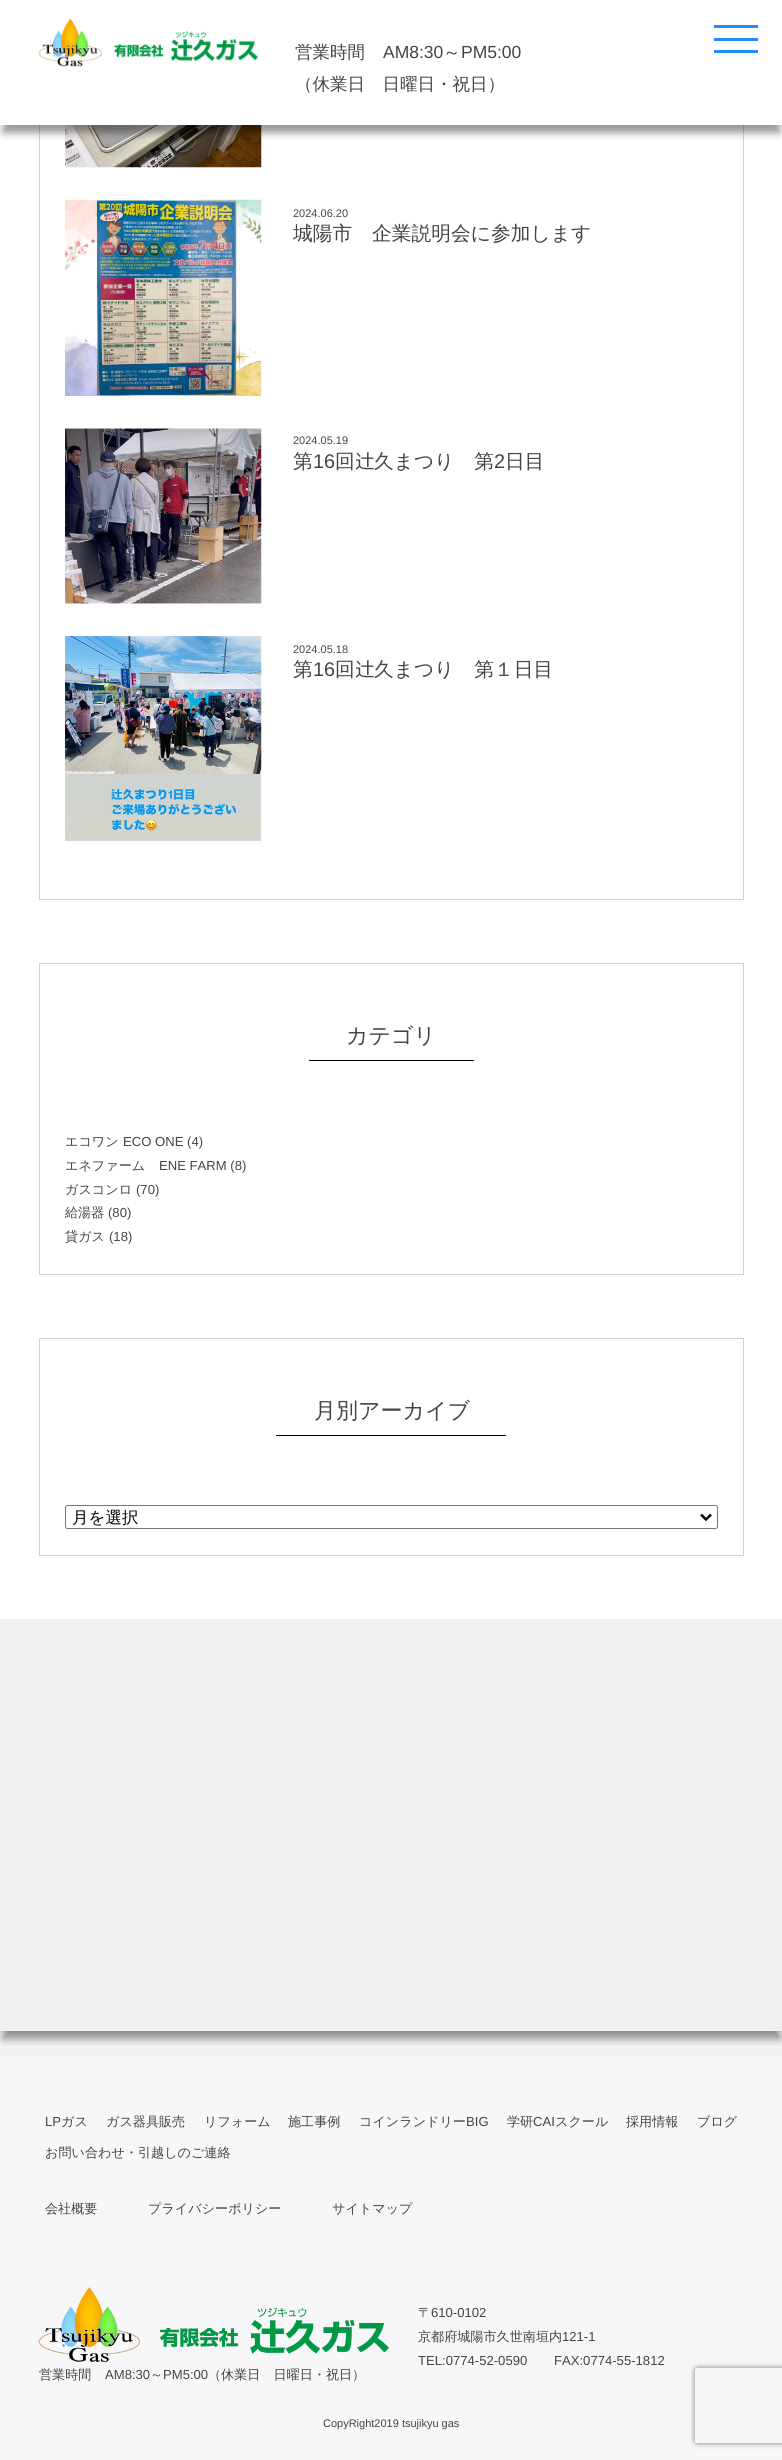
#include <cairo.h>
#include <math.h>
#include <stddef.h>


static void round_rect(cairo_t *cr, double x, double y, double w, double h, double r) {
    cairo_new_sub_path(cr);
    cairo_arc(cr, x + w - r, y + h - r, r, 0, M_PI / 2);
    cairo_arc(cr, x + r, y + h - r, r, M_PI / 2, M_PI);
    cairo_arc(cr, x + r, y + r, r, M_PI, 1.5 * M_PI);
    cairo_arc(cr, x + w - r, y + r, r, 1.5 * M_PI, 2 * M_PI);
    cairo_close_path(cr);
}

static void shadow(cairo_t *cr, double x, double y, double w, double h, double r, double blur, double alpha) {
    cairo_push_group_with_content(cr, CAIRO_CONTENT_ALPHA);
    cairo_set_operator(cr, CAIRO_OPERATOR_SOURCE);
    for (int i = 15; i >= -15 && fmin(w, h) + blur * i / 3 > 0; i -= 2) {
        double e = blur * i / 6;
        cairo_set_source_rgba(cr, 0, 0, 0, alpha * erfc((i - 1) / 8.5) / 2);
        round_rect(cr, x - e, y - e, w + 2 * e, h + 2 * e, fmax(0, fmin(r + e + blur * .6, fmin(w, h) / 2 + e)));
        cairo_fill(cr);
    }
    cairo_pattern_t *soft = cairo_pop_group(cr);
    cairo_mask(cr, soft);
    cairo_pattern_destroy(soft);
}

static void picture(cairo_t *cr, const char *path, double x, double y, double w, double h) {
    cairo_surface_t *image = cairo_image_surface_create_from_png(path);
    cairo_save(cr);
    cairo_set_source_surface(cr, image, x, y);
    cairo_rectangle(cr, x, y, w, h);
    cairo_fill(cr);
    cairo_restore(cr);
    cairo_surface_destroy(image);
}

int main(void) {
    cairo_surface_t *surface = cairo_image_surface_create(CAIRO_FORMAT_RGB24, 782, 2460);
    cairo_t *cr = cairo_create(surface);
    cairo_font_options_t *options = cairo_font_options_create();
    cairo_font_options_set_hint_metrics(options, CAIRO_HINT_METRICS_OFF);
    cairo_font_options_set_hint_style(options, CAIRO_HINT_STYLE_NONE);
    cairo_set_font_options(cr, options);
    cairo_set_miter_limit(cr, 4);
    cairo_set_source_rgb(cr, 1, 1, 1);
    cairo_paint(cr);
    cairo_rectangle(cr, 39.5, -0.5, 704, 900);
    cairo_set_source_rgb(cr, 0.82, 0.82, 0.82);
    cairo_set_line_width(cr, 1);
    cairo_stroke(cr);
    picture(cr, "img2.png", 65, 125, 197, 43);
    cairo_set_source_rgb(cr, 0, 0, 0);
    shadow(cr, 3, 13, 777, 120, 0, 4, 0.4);
    cairo_set_source_rgb(cr, 1, 1, 1);
    cairo_rectangle(cr, 0, 0, 782, 125);
    cairo_fill(cr);
    cairo_set_source_rgb(cr, 0.137, 0.557, 0.945);
    cairo_rectangle(cr, 714, 25, 44, 3);
    cairo_fill(cr);
    cairo_rectangle(cr, 714, 38, 44, 3);
    cairo_fill(cr);
    cairo_rectangle(cr, 714, 50, 44, 3);
    cairo_fill(cr);
    picture(cr, "img1.png", 38, 18, 220, 49);
    cairo_select_font_face(cr, "WenQuanYi Zen Hei Medium", CAIRO_FONT_SLANT_NORMAL, CAIRO_FONT_WEIGHT_NORMAL);
    cairo_set_font_size(cr, 17.5);
    cairo_set_source_rgb(cr, 0.267, 0.267, 0.267);
    cairo_move_to(cr, 295, 58);
    cairo_show_text(cr, "営業時間");
    cairo_select_font_face(cr, "Liberation Sans", CAIRO_FONT_SLANT_NORMAL, CAIRO_FONT_WEIGHT_NORMAL);
    cairo_move_to(cr, 383, 58);
    cairo_show_text(cr, "AM8:30");
    cairo_select_font_face(cr, "WenQuanYi Zen Hei Medium", CAIRO_FONT_SLANT_NORMAL, CAIRO_FONT_WEIGHT_NORMAL);
    cairo_move_to(cr, 443, 58);
    cairo_show_text(cr, "～");
    cairo_select_font_face(cr, "Liberation Sans", CAIRO_FONT_SLANT_NORMAL, CAIRO_FONT_WEIGHT_NORMAL);
    cairo_move_to(cr, 461, 58);
    cairo_show_text(cr, "PM5:00");
    cairo_select_font_face(cr, "WenQuanYi Zen Hei Medium", CAIRO_FONT_SLANT_NORMAL, CAIRO_FONT_WEIGHT_NORMAL);
    cairo_move_to(cr, 295, 90);
    cairo_show_text(cr, "（休業日　日曜日・祝日）");
    picture(cr, "img3.png", 65, 199, 197, 197);
    cairo_select_font_face(cr, "Liberation Sans", CAIRO_FONT_SLANT_NORMAL, CAIRO_FONT_WEIGHT_NORMAL);
    cairo_set_font_size(cr, 11);
    cairo_move_to(cr, 293, 217);
    cairo_show_text(cr, "2024.06.20");
    cairo_select_font_face(cr, "WenQuanYi Zen Hei Medium", CAIRO_FONT_SLANT_NORMAL, CAIRO_FONT_WEIGHT_NORMAL);
    cairo_set_font_size(cr, 19.75);
    cairo_move_to(cr, 293, 240);
    cairo_show_text(cr, "城陽市　企業説明会に参加します");
    picture(cr, "img4.png", 65, 428, 197, 176);
    cairo_select_font_face(cr, "Liberation Sans", CAIRO_FONT_SLANT_NORMAL, CAIRO_FONT_WEIGHT_NORMAL);
    cairo_set_font_size(cr, 11);
    cairo_move_to(cr, 293, 444);
    cairo_show_text(cr, "2024.05.19");
    cairo_select_font_face(cr, "WenQuanYi Zen Hei Medium", CAIRO_FONT_SLANT_NORMAL, CAIRO_FONT_WEIGHT_NORMAL);
    cairo_set_font_size(cr, 19.75);
    cairo_move_to(cr, 293, 468);
    cairo_show_text(cr, "第");
    cairo_select_font_face(cr, "Liberation Sans", CAIRO_FONT_SLANT_NORMAL, CAIRO_FONT_WEIGHT_NORMAL);
    cairo_move_to(cr, 313, 468);
    cairo_show_text(cr, "16");
    cairo_select_font_face(cr, "WenQuanYi Zen Hei Medium", CAIRO_FONT_SLANT_NORMAL, CAIRO_FONT_WEIGHT_NORMAL);
    cairo_move_to(cr, 335, 468);
    cairo_show_text(cr, "回");
    cairo_select_font_face(cr, "M PLUS 1p", CAIRO_FONT_SLANT_NORMAL, CAIRO_FONT_WEIGHT_NORMAL);
    cairo_move_to(cr, 355, 468);
    cairo_show_text(cr, "辻");
    cairo_select_font_face(cr, "WenQuanYi Zen Hei Medium", CAIRO_FONT_SLANT_NORMAL, CAIRO_FONT_WEIGHT_NORMAL);
    cairo_move_to(cr, 374, 468);
    cairo_show_text(cr, "久まつり　第");
    cairo_select_font_face(cr, "Liberation Sans", CAIRO_FONT_SLANT_NORMAL, CAIRO_FONT_WEIGHT_NORMAL);
    cairo_move_to(cr, 494, 468);
    cairo_show_text(cr, "2");
    cairo_select_font_face(cr, "WenQuanYi Zen Hei Medium", CAIRO_FONT_SLANT_NORMAL, CAIRO_FONT_WEIGHT_NORMAL);
    cairo_move_to(cr, 505, 468);
    cairo_show_text(cr, "日目");
    picture(cr, "img5.png", 65, 636, 197, 205);
    cairo_select_font_face(cr, "Liberation Sans", CAIRO_FONT_SLANT_NORMAL, CAIRO_FONT_WEIGHT_NORMAL);
    cairo_set_font_size(cr, 11);
    cairo_move_to(cr, 293, 653);
    cairo_show_text(cr, "2024.05.18");
    cairo_select_font_face(cr, "WenQuanYi Zen Hei Medium", CAIRO_FONT_SLANT_NORMAL, CAIRO_FONT_WEIGHT_NORMAL);
    cairo_set_font_size(cr, 19.75);
    cairo_move_to(cr, 293, 676);
    cairo_show_text(cr, "第");
    cairo_select_font_face(cr, "Liberation Sans", CAIRO_FONT_SLANT_NORMAL, CAIRO_FONT_WEIGHT_NORMAL);
    cairo_move_to(cr, 313, 676);
    cairo_show_text(cr, "16");
    cairo_select_font_face(cr, "WenQuanYi Zen Hei Medium", CAIRO_FONT_SLANT_NORMAL, CAIRO_FONT_WEIGHT_NORMAL);
    cairo_move_to(cr, 335, 676);
    cairo_show_text(cr, "回");
    cairo_select_font_face(cr, "M PLUS 1p", CAIRO_FONT_SLANT_NORMAL, CAIRO_FONT_WEIGHT_NORMAL);
    cairo_move_to(cr, 355, 676);
    cairo_show_text(cr, "辻");
    cairo_select_font_face(cr, "WenQuanYi Zen Hei Medium", CAIRO_FONT_SLANT_NORMAL, CAIRO_FONT_WEIGHT_NORMAL);
    cairo_move_to(cr, 374, 676);
    cairo_show_text(cr, "久まつり　第１日目");
    cairo_rectangle(cr, 39.5, 963.5, 704, 311);
    cairo_set_source_rgb(cr, 0.82, 0.82, 0.82);
    cairo_stroke(cr);
    cairo_set_source_rgb(cr, 0, 0, 0);
    cairo_rectangle(cr, 309, 1060, 165, 1);
    cairo_fill(cr);
    cairo_set_font_size(cr, 22);
    cairo_set_source_rgb(cr, 0.267, 0.267, 0.267);
    cairo_move_to(cr, 346, 1043);
    cairo_show_text(cr, "カテゴリ");
    cairo_set_font_size(cr, 13.1);
    cairo_move_to(cr, 65, 1146);
    cairo_show_text(cr, "エコワン");
    cairo_select_font_face(cr, "Liberation Sans", CAIRO_FONT_SLANT_NORMAL, CAIRO_FONT_WEIGHT_NORMAL);
    cairo_move_to(cr, 123, 1146);
    cairo_show_text(cr, "ECO ONE (4)");
    cairo_select_font_face(cr, "WenQuanYi Zen Hei Medium", CAIRO_FONT_SLANT_NORMAL, CAIRO_FONT_WEIGHT_NORMAL);
    cairo_move_to(cr, 65, 1170);
    cairo_show_text(cr, "エネファーム");
    cairo_select_font_face(cr, "Liberation Sans", CAIRO_FONT_SLANT_NORMAL, CAIRO_FONT_WEIGHT_NORMAL);
    cairo_move_to(cr, 159, 1170);
    cairo_show_text(cr, "ENE FARM (8)");
    cairo_select_font_face(cr, "WenQuanYi Zen Hei Medium", CAIRO_FONT_SLANT_NORMAL, CAIRO_FONT_WEIGHT_NORMAL);
    cairo_move_to(cr, 65, 1194);
    cairo_show_text(cr, "ガスコンロ");
    cairo_select_font_face(cr, "Liberation Sans", CAIRO_FONT_SLANT_NORMAL, CAIRO_FONT_WEIGHT_NORMAL);
    cairo_move_to(cr, 136, 1194);
    cairo_show_text(cr, "(70)");
    cairo_select_font_face(cr, "WenQuanYi Zen Hei Medium", CAIRO_FONT_SLANT_NORMAL, CAIRO_FONT_WEIGHT_NORMAL);
    cairo_move_to(cr, 65, 1217);
    cairo_show_text(cr, "給湯器");
    cairo_select_font_face(cr, "Liberation Sans", CAIRO_FONT_SLANT_NORMAL, CAIRO_FONT_WEIGHT_NORMAL);
    cairo_move_to(cr, 108, 1217);
    cairo_show_text(cr, "(80)");
    cairo_select_font_face(cr, "WenQuanYi Zen Hei Medium", CAIRO_FONT_SLANT_NORMAL, CAIRO_FONT_WEIGHT_NORMAL);
    cairo_move_to(cr, 65, 1241);
    cairo_show_text(cr, "貸ガス");
    cairo_select_font_face(cr, "Liberation Sans", CAIRO_FONT_SLANT_NORMAL, CAIRO_FONT_WEIGHT_NORMAL);
    cairo_move_to(cr, 109, 1241);
    cairo_show_text(cr, "(18)");
    cairo_rectangle(cr, 39.5, 1338.5, 704, 217);
    cairo_set_source_rgb(cr, 0.82, 0.82, 0.82);
    cairo_stroke(cr);
    cairo_set_source_rgb(cr, 0, 0, 0);
    cairo_rectangle(cr, 276, 1435, 230, 1);
    cairo_fill(cr);
    cairo_select_font_face(cr, "WenQuanYi Zen Hei Medium", CAIRO_FONT_SLANT_NORMAL, CAIRO_FONT_WEIGHT_NORMAL);
    cairo_set_font_size(cr, 22);
    cairo_set_source_rgb(cr, 0.267, 0.267, 0.267);
    cairo_move_to(cr, 314, 1418);
    cairo_show_text(cr, "月別アーカイブ");
    round_rect(cr, 65.5, 1505.5, 652, 23, 2);
    cairo_set_source_rgb(cr, 0.463, 0.463, 0.463);
    cairo_stroke(cr);
    cairo_new_path(cr);
    cairo_move_to(cr, 701, 1514.5);
    cairo_line_to(cr, 706, 1519.5);
    cairo_line_to(cr, 711, 1514.5);
    cairo_set_source_rgb(cr, 0, 0, 0);
    cairo_set_line_width(cr, 2.5);
    cairo_stroke(cr);
    cairo_set_font_size(cr, 16.5);
    cairo_move_to(cr, 72, 1523);
    cairo_show_text(cr, "月を選択");
    cairo_set_source_rgb(cr, 0.945, 0.945, 0.945);
    cairo_rectangle(cr, 0, 1619, 782, 437);
    cairo_fill(cr);
    cairo_save(cr);
    cairo_rectangle(cr, 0, 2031, 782, 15);
    cairo_clip(cr);
    cairo_set_source_rgb(cr, 0, 0, 0);
    shadow(cr, 3, 1631, 777, 408, 0, 4, 0.4);
    cairo_restore(cr);
    cairo_set_source_rgb(cr, 0.965, 0.961, 0.976);
    cairo_rectangle(cr, 0, 2056, 782, 404);
    cairo_fill(cr);
    cairo_select_font_face(cr, "Liberation Sans", CAIRO_FONT_SLANT_NORMAL, CAIRO_FONT_WEIGHT_NORMAL);
    cairo_set_font_size(cr, 13.1);
    cairo_set_source_rgb(cr, 0.267, 0.267, 0.267);
    cairo_move_to(cr, 45, 2126);
    cairo_show_text(cr, "LP");
    cairo_select_font_face(cr, "WenQuanYi Zen Hei Medium", CAIRO_FONT_SLANT_NORMAL, CAIRO_FONT_WEIGHT_NORMAL);
    cairo_move_to(cr, 61, 2126);
    cairo_show_text(cr, "ガス");
    cairo_move_to(cr, 106, 2126);
    cairo_show_text(cr, "ガス器具販売");
    cairo_move_to(cr, 204, 2126);
    cairo_show_text(cr, "リフォーム");
    cairo_move_to(cr, 288, 2126);
    cairo_show_text(cr, "施工事例");
    cairo_move_to(cr, 359, 2126);
    cairo_show_text(cr, "コインランドリー");
    cairo_select_font_face(cr, "Liberation Sans", CAIRO_FONT_SLANT_NORMAL, CAIRO_FONT_WEIGHT_NORMAL);
    cairo_move_to(cr, 466, 2126);
    cairo_show_text(cr, "BIG");
    cairo_select_font_face(cr, "WenQuanYi Zen Hei Medium", CAIRO_FONT_SLANT_NORMAL, CAIRO_FONT_WEIGHT_NORMAL);
    cairo_move_to(cr, 507, 2126);
    cairo_show_text(cr, "学研");
    cairo_select_font_face(cr, "Liberation Sans", CAIRO_FONT_SLANT_NORMAL, CAIRO_FONT_WEIGHT_NORMAL);
    cairo_move_to(cr, 533, 2126);
    cairo_show_text(cr, "CAI");
    cairo_select_font_face(cr, "WenQuanYi Zen Hei Medium", CAIRO_FONT_SLANT_NORMAL, CAIRO_FONT_WEIGHT_NORMAL);
    cairo_move_to(cr, 555, 2126);
    cairo_show_text(cr, "スクール");
    cairo_move_to(cr, 626, 2126);
    cairo_show_text(cr, "採用情報");
    cairo_move_to(cr, 697, 2126);
    cairo_show_text(cr, "ブログ");
    cairo_move_to(cr, 45, 2157);
    cairo_show_text(cr, "お問い合わせ・引越しのご連絡");
    cairo_move_to(cr, 45, 2213);
    cairo_show_text(cr, "会社概要");
    cairo_move_to(cr, 148, 2213);
    cairo_show_text(cr, "プライバシーポリシー");
    cairo_move_to(cr, 332, 2213);
    cairo_show_text(cr, "サイトマップ");
    cairo_move_to(cr, 418, 2317);
    cairo_show_text(cr, "〒");
    cairo_select_font_face(cr, "Liberation Sans", CAIRO_FONT_SLANT_NORMAL, CAIRO_FONT_WEIGHT_NORMAL);
    cairo_move_to(cr, 431, 2317);
    cairo_show_text(cr, "610-0102");
    cairo_select_font_face(cr, "WenQuanYi Zen Hei Medium", CAIRO_FONT_SLANT_NORMAL, CAIRO_FONT_WEIGHT_NORMAL);
    cairo_move_to(cr, 418, 2341);
    cairo_show_text(cr, "京都府城陽市久世南垣内");
    cairo_select_font_face(cr, "Liberation Sans", CAIRO_FONT_SLANT_NORMAL, CAIRO_FONT_WEIGHT_NORMAL);
    cairo_move_to(cr, 562, 2341);
    cairo_show_text(cr, "121-1");
    cairo_move_to(cr, 418, 2365);
    cairo_show_text(cr, "TEL:0774-52-0590");
    cairo_move_to(cr, 554, 2365);
    cairo_show_text(cr, "FAX:0774-55-1812");
    picture(cr, "img6.png", 38, 2287, 351, 76);
    cairo_select_font_face(cr, "WenQuanYi Zen Hei Medium", CAIRO_FONT_SLANT_NORMAL, CAIRO_FONT_WEIGHT_NORMAL);
    cairo_move_to(cr, 39, 2379);
    cairo_show_text(cr, "営業時間");
    cairo_select_font_face(cr, "Liberation Sans", CAIRO_FONT_SLANT_NORMAL, CAIRO_FONT_WEIGHT_NORMAL);
    cairo_move_to(cr, 105, 2379);
    cairo_show_text(cr, "AM8:30");
    cairo_select_font_face(cr, "WenQuanYi Zen Hei Medium", CAIRO_FONT_SLANT_NORMAL, CAIRO_FONT_WEIGHT_NORMAL);
    cairo_move_to(cr, 150, 2379);
    cairo_show_text(cr, "～");
    cairo_select_font_face(cr, "Liberation Sans", CAIRO_FONT_SLANT_NORMAL, CAIRO_FONT_WEIGHT_NORMAL);
    cairo_move_to(cr, 163, 2379);
    cairo_show_text(cr, "PM5:00");
    cairo_select_font_face(cr, "WenQuanYi Zen Hei Medium", CAIRO_FONT_SLANT_NORMAL, CAIRO_FONT_WEIGHT_NORMAL);
    cairo_move_to(cr, 208, 2379);
    cairo_show_text(cr, "（休業日　日曜日・祝日）");
    cairo_select_font_face(cr, "Liberation Sans", CAIRO_FONT_SLANT_NORMAL, CAIRO_FONT_WEIGHT_NORMAL);
    cairo_set_font_size(cr, 11);
    cairo_move_to(cr, 323, 2427);
    cairo_show_text(cr, "CopyRight2019 tsujikyu gas");
    cairo_save(cr);
    cairo_set_fill_rule(cr, CAIRO_FILL_RULE_EVEN_ODD);
    cairo_new_path(cr);
    cairo_move_to(cr, 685, 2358);
    cairo_line_to(cr, 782, 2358);
    cairo_line_to(cr, 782, 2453);
    cairo_line_to(cr, 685, 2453);
    cairo_close_path(cr);
    cairo_move_to(cr, 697.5, 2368);
    cairo_line_to(cr, 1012.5, 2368);
    cairo_curve_to(cr, 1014, 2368, 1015, 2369, 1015, 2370.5);
    cairo_line_to(cr, 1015, 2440.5);
    cairo_curve_to(cr, 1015, 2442, 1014, 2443, 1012.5, 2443);
    cairo_line_to(cr, 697.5, 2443);
    cairo_curve_to(cr, 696, 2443, 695, 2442, 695, 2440.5);
    cairo_line_to(cr, 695, 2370.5);
    cairo_curve_to(cr, 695, 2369, 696, 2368, 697.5, 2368);
    cairo_close_path(cr);
    cairo_clip(cr);
    cairo_set_source_rgb(cr, 0.502, 0.502, 0.502);
    shadow(cr, 695, 2368, 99, 75, 2.5, 3, 1);
    cairo_restore(cr);
    cairo_surface_write_to_png(surface, "page.png");
    cairo_font_options_destroy(options);
    cairo_destroy(cr);
    cairo_surface_destroy(surface);
    return 0;
}
